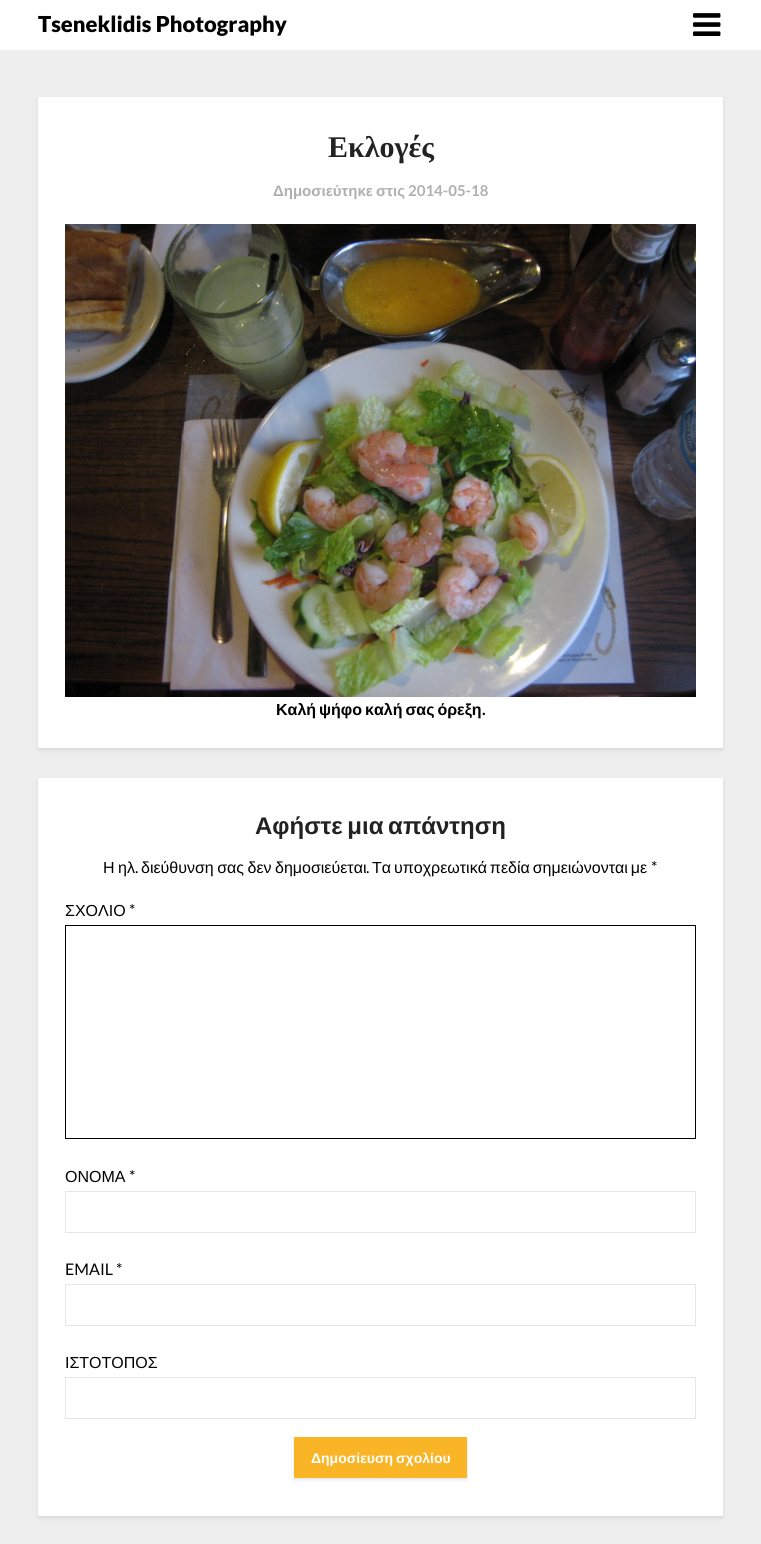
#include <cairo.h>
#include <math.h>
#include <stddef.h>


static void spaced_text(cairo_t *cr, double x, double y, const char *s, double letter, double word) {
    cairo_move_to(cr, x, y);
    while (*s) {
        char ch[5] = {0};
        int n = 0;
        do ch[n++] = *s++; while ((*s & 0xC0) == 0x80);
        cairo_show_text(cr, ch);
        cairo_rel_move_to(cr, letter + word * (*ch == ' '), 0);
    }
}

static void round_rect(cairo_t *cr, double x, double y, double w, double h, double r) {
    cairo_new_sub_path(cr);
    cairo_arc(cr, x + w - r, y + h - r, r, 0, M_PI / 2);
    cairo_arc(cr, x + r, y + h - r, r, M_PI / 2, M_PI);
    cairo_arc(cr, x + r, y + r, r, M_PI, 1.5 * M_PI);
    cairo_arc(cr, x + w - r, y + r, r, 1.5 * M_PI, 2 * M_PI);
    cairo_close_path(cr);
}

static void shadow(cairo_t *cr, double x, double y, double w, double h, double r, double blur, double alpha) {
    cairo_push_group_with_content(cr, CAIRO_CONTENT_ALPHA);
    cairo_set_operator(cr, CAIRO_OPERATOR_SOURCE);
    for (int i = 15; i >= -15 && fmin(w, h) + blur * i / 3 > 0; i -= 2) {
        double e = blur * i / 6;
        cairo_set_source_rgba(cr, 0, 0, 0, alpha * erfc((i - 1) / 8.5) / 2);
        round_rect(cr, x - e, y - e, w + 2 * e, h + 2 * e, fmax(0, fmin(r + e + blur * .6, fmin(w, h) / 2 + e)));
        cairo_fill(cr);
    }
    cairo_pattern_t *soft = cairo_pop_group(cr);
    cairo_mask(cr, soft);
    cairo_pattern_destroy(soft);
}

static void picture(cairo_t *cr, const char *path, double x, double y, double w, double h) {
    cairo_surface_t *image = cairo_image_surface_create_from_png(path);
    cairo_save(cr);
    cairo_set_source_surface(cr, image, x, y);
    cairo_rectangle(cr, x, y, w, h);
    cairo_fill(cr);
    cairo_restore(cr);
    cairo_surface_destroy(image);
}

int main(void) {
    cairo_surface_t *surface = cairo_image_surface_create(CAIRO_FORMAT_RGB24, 761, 1544);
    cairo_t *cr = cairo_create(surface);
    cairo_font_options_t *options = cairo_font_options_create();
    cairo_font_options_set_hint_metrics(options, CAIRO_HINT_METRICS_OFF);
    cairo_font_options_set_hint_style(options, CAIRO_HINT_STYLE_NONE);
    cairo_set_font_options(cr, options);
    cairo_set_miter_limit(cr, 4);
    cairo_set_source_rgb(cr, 0.933, 0.933, 0.933);
    cairo_paint(cr);
    cairo_set_source_rgb(cr, 1, 1, 1);
    cairo_rectangle(cr, 0, 0, 761, 50);
    cairo_fill(cr);
    cairo_select_font_face(cr, "Lato Black", CAIRO_FONT_SLANT_NORMAL, CAIRO_FONT_WEIGHT_NORMAL);
    cairo_set_font_size(cr, 22);
    cairo_set_source_rgb(cr, 0, 0, 0);
    cairo_move_to(cr, 38, 32);
    cairo_show_text(cr, "Tseneklidis Photography");
    picture(cr, "img1.png", 693, 13, 28, 23);
    cairo_set_source_rgb(cr, 0, 0, 0);
    shadow(cr, 38, 99, 685, 651, 1, 2, 0.1);
    cairo_set_source_rgb(cr, 1, 1, 1);
    round_rect(cr, 38, 97, 685, 651, 1);
    cairo_fill(cr);
    cairo_select_font_face(cr, "Liberation Serif", CAIRO_FONT_SLANT_NORMAL, CAIRO_FONT_WEIGHT_BOLD);
    cairo_set_font_size(cr, 30);
    cairo_set_source_rgb(cr, 0.133, 0.133, 0.133);
    cairo_move_to(cr, 328, 157);
    cairo_show_text(cr, "Εκλογές");
    cairo_select_font_face(cr, "Liberation Sans", CAIRO_FONT_SLANT_NORMAL, CAIRO_FONT_WEIGHT_BOLD);
    cairo_set_font_size(cr, 15);
    cairo_set_source_rgb(cr, 0.686, 0.686, 0.686);
    spaced_text(cr, 273, 196, "Δημοσιεύτηκε στις", 0, -1);
    cairo_select_font_face(cr, "Lato", CAIRO_FONT_SLANT_NORMAL, CAIRO_FONT_WEIGHT_BOLD);
    cairo_move_to(cr, 408, 196);
    cairo_show_text(cr, "2014-05-18");
    picture(cr, "img2.png", 65, 224, 631, 473);
    cairo_select_font_face(cr, "Liberation Sans", CAIRO_FONT_SLANT_NORMAL, CAIRO_FONT_WEIGHT_BOLD);
    cairo_set_font_size(cr, 16);
    cairo_set_source_rgb(cr, 0, 0, 0);
    spaced_text(cr, 276, 715, "Καλή ψήφο καλή σας όρεξη", 0, -1.5);
    cairo_select_font_face(cr, "Lato", CAIRO_FONT_SLANT_NORMAL, CAIRO_FONT_WEIGHT_BOLD);
    cairo_move_to(cr, 482, 715);
    cairo_show_text(cr, ".");
    cairo_set_source_rgb(cr, 0, 0, 0);
    shadow(cr, 38, 780, 685, 738, 1, 2, 0.1);
    cairo_set_source_rgb(cr, 1, 1, 1);
    round_rect(cr, 38, 778, 685, 738, 1);
    cairo_fill(cr);
    cairo_select_font_face(cr, "Liberation Sans", CAIRO_FONT_SLANT_NORMAL, CAIRO_FONT_WEIGHT_BOLD);
    cairo_set_font_size(cr, 24);
    cairo_set_source_rgb(cr, 0.133, 0.133, 0.133);
    spaced_text(cr, 255, 834, "Αφήστε μια απάντηση", 0, -2);
    cairo_select_font_face(cr, "Liberation Sans", CAIRO_FONT_SLANT_NORMAL, CAIRO_FONT_WEIGHT_NORMAL);
    cairo_set_font_size(cr, 16);
    cairo_set_source_rgb(cr, 0, 0, 0);
    spaced_text(cr, 103, 873, "Η ηλ", 0, -1);
    cairo_select_font_face(cr, "Lato", CAIRO_FONT_SLANT_NORMAL, CAIRO_FONT_WEIGHT_NORMAL);
    cairo_move_to(cr, 135, 873);
    cairo_show_text(cr, ".");
    cairo_select_font_face(cr, "Liberation Sans", CAIRO_FONT_SLANT_NORMAL, CAIRO_FONT_WEIGHT_NORMAL);
    spaced_text(cr, 141, 873, "διεύθυνση σας δεν δημοσιεύεται", 0, -1);
    cairo_select_font_face(cr, "Lato", CAIRO_FONT_SLANT_NORMAL, CAIRO_FONT_WEIGHT_NORMAL);
    cairo_move_to(cr, 366, 873);
    cairo_show_text(cr, ".");
    cairo_select_font_face(cr, "Liberation Sans", CAIRO_FONT_SLANT_NORMAL, CAIRO_FONT_WEIGHT_NORMAL);
    spaced_text(cr, 372, 873, "Τα υποχρεωτικά πεδία σημειώνονται με", 0, -1.5);
    cairo_select_font_face(cr, "Lato", CAIRO_FONT_SLANT_NORMAL, CAIRO_FONT_WEIGHT_NORMAL);
    cairo_move_to(cr, 651, 873);
    cairo_show_text(cr, "*");
    cairo_select_font_face(cr, "Liberation Sans", CAIRO_FONT_SLANT_NORMAL, CAIRO_FONT_WEIGHT_NORMAL);
    cairo_move_to(cr, 65, 916);
    cairo_show_text(cr, "ΣΧΟΛΙΟ");
    cairo_select_font_face(cr, "Lato", CAIRO_FONT_SLANT_NORMAL, CAIRO_FONT_WEIGHT_NORMAL);
    cairo_move_to(cr, 129, 916);
    cairo_show_text(cr, "*");
    cairo_rectangle(cr, 65.5, 925.5, 630, 213);
    cairo_set_line_width(cr, 1);
    cairo_stroke(cr);
    cairo_select_font_face(cr, "Liberation Sans", CAIRO_FONT_SLANT_NORMAL, CAIRO_FONT_WEIGHT_NORMAL);
    cairo_move_to(cr, 65, 1182);
    cairo_show_text(cr, "ΟΝΟΜΑ");
    cairo_select_font_face(cr, "Lato", CAIRO_FONT_SLANT_NORMAL, CAIRO_FONT_WEIGHT_NORMAL);
    cairo_move_to(cr, 129, 1182);
    cairo_show_text(cr, "*");
    cairo_rectangle(cr, 65.5, 1191.5, 630, 41);
    cairo_set_source_rgb(cr, 0.898, 0.902, 0.914);
    cairo_stroke(cr);
    cairo_set_source_rgb(cr, 0, 0, 0);
    cairo_move_to(cr, 65, 1275);
    cairo_show_text(cr, "EMAIL *");
    cairo_rectangle(cr, 65.5, 1284.5, 630, 41);
    cairo_set_source_rgb(cr, 0.898, 0.902, 0.914);
    cairo_stroke(cr);
    cairo_select_font_face(cr, "Liberation Sans", CAIRO_FONT_SLANT_NORMAL, CAIRO_FONT_WEIGHT_NORMAL);
    cairo_set_source_rgb(cr, 0, 0, 0);
    cairo_move_to(cr, 65, 1368);
    cairo_show_text(cr, "ΙΣΤΟΤΟΠΟΣ");
    cairo_rectangle(cr, 65.5, 1377.5, 630, 41);
    cairo_set_source_rgb(cr, 0.898, 0.902, 0.914);
    cairo_stroke(cr);
    cairo_set_source_rgb(cr, 0, 0, 0);
    shadow(cr, 294, 1439, 173, 41, 0, 2, 0.1);
    cairo_set_source_rgb(cr, 0.98, 0.71, 0.149);
    cairo_rectangle(cr, 294, 1437, 173, 41);
    cairo_fill(cr);
    cairo_select_font_face(cr, "Liberation Sans", CAIRO_FONT_SLANT_NORMAL, CAIRO_FONT_WEIGHT_BOLD);
    cairo_set_font_size(cr, 14);
    cairo_set_source_rgb(cr, 1, 1, 1);
    spaced_text(cr, 311, 1463, "Δημοσίευση σχολίου", 0, -1);
    cairo_surface_write_to_png(surface, "page.png");
    cairo_font_options_destroy(options);
    cairo_destroy(cr);
    cairo_surface_destroy(surface);
    return 0;
}
